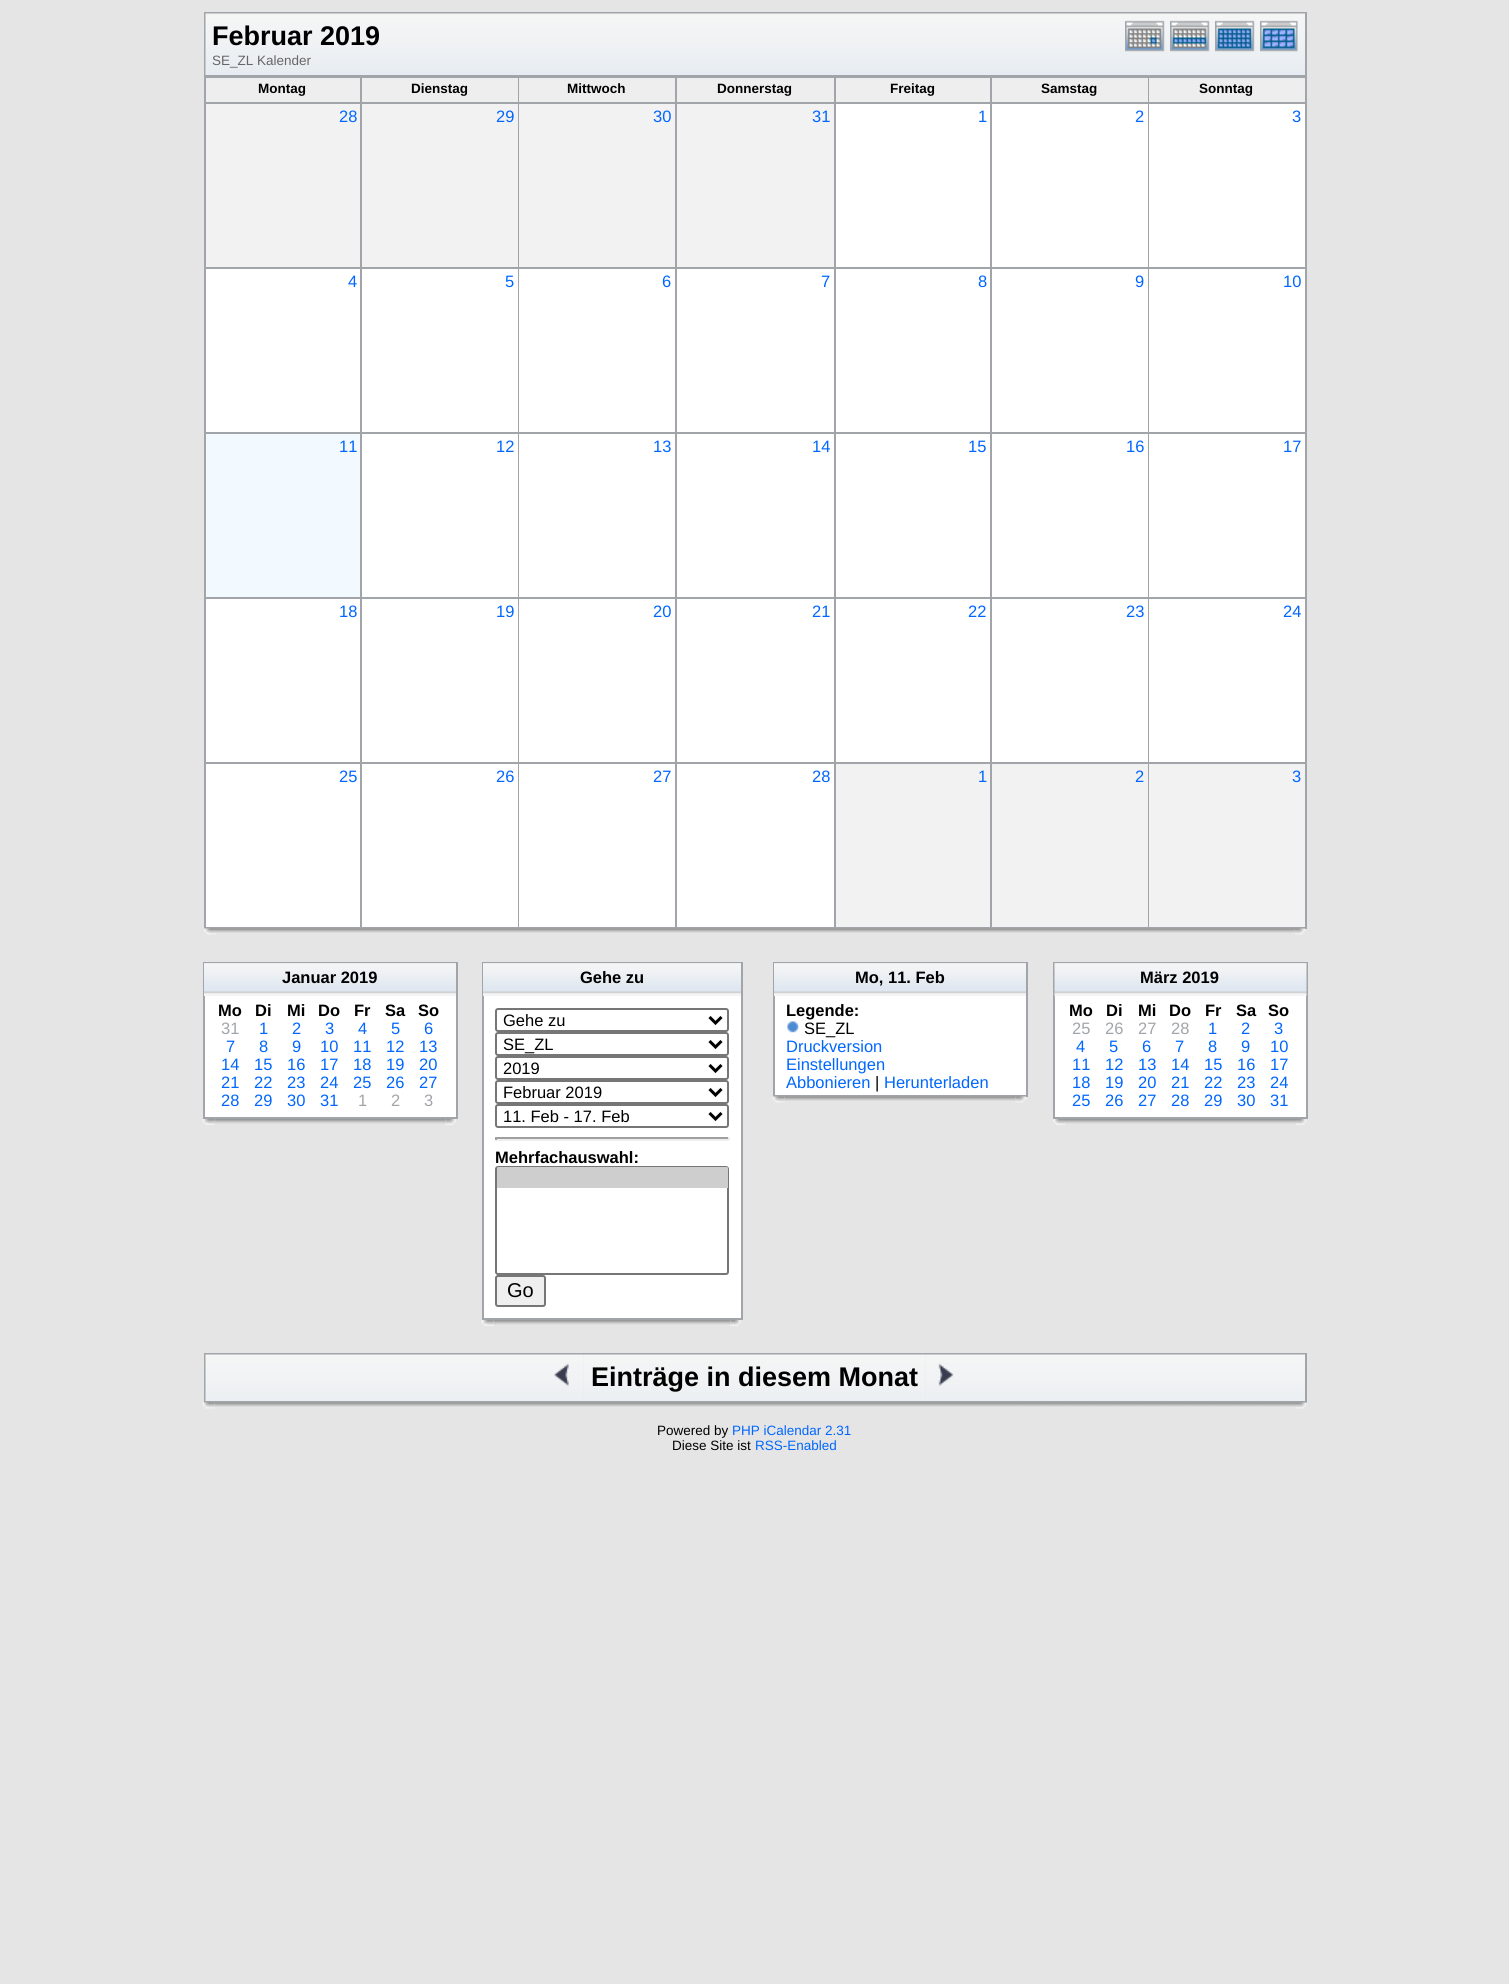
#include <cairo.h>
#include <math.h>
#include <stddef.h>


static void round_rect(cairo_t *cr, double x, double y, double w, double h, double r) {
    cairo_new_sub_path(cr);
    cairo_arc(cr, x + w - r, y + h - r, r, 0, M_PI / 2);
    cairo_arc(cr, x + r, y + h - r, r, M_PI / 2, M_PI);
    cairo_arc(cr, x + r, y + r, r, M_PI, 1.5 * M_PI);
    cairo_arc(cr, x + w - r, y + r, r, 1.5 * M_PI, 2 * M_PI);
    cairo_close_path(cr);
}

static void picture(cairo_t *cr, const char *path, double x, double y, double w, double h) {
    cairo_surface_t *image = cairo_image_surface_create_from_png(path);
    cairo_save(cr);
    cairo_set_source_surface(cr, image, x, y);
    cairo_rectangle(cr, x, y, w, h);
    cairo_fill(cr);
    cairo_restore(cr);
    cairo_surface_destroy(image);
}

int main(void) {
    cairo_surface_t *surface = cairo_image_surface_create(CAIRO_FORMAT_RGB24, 1509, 1984);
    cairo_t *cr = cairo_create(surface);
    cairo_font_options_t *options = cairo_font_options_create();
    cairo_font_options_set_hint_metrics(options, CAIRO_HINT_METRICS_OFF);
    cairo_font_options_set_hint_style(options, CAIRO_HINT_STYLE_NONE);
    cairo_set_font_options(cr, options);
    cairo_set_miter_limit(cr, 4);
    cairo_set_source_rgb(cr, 0.898, 0.898, 0.898);
    cairo_paint(cr);
    cairo_rectangle(cr, 205, 13, 1101, 63);
    cairo_set_source_rgb(cr, 0.631, 0.647, 0.663);
    cairo_stroke(cr);
    picture(cr, "img1.png", 205, 13, 920, 62);
    cairo_select_font_face(cr, "Liberation Sans", CAIRO_FONT_SLANT_NORMAL, CAIRO_FONT_WEIGHT_BOLD);
    cairo_set_font_size(cr, 27);
    cairo_set_source_rgb(cr, 0, 0, 0);
    cairo_move_to(cr, 212, 45);
    cairo_show_text(cr, "Februar 2019");
    cairo_select_font_face(cr, "Liberation Sans", CAIRO_FONT_SLANT_NORMAL, CAIRO_FONT_WEIGHT_NORMAL);
    cairo_set_font_size(cr, 13.5);
    cairo_set_source_rgb(cr, 0.4, 0.4, 0.4);
    cairo_move_to(cr, 212, 65);
    cairo_show_text(cr, "SE_ZL Kalender");
    picture(cr, "img2.png", 1125, 13, 180, 62);
    picture(cr, "img3.png", 1125, 20, 40, 32);
    picture(cr, "img4.png", 1170, 20, 40, 32);
    picture(cr, "img5.png", 1215, 20, 40, 32);
    picture(cr, "img6.png", 1260, 20, 38, 32);
    cairo_set_source_rgb(cr, 0.631, 0.647, 0.663);
    cairo_rectangle(cr, 204, 77, 1103, 852);
    cairo_fill(cr);
    cairo_set_source_rgb(cr, 0.933, 0.933, 0.933);
    cairo_rectangle(cr, 206, 78, 154, 24);
    cairo_fill(cr);
    cairo_select_font_face(cr, "Liberation Sans", CAIRO_FONT_SLANT_NORMAL, CAIRO_FONT_WEIGHT_BOLD);
    cairo_set_source_rgb(cr, 0, 0, 0);
    cairo_move_to(cr, 258, 93);
    cairo_show_text(cr, "Montag");
    cairo_set_source_rgb(cr, 0.933, 0.933, 0.933);
    cairo_rectangle(cr, 362, 78, 156, 24);
    cairo_fill(cr);
    cairo_set_source_rgb(cr, 0, 0, 0);
    cairo_move_to(cr, 411, 93);
    cairo_show_text(cr, "Dienstag");
    cairo_set_source_rgb(cr, 0.933, 0.933, 0.933);
    cairo_rectangle(cr, 519, 78, 156, 24);
    cairo_fill(cr);
    cairo_set_source_rgb(cr, 0, 0, 0);
    cairo_move_to(cr, 567, 93);
    cairo_show_text(cr, "Mittwoch");
    cairo_set_source_rgb(cr, 0.933, 0.933, 0.933);
    cairo_rectangle(cr, 677, 78, 157, 24);
    cairo_fill(cr);
    cairo_set_source_rgb(cr, 0, 0, 0);
    cairo_move_to(cr, 717, 93);
    cairo_show_text(cr, "Donnerstag");
    cairo_set_source_rgb(cr, 0.933, 0.933, 0.933);
    cairo_rectangle(cr, 836, 78, 154, 24);
    cairo_fill(cr);
    cairo_set_source_rgb(cr, 0, 0, 0);
    cairo_move_to(cr, 890, 93);
    cairo_show_text(cr, "Freitag");
    cairo_set_source_rgb(cr, 0.933, 0.933, 0.933);
    cairo_rectangle(cr, 992, 78, 156, 24);
    cairo_fill(cr);
    cairo_set_source_rgb(cr, 0, 0, 0);
    cairo_move_to(cr, 1041, 93);
    cairo_show_text(cr, "Samstag");
    cairo_set_source_rgb(cr, 0.933, 0.933, 0.933);
    cairo_rectangle(cr, 1149, 78, 156, 24);
    cairo_fill(cr);
    cairo_set_source_rgb(cr, 0, 0, 0);
    cairo_move_to(cr, 1199, 93);
    cairo_show_text(cr, "Sonntag");
    cairo_set_source_rgb(cr, 0.949, 0.949, 0.949);
    cairo_rectangle(cr, 206, 104, 154, 163);
    cairo_fill(cr);
    cairo_select_font_face(cr, "Liberation Sans", CAIRO_FONT_SLANT_NORMAL, CAIRO_FONT_WEIGHT_NORMAL);
    cairo_set_font_size(cr, 16.5);
    cairo_set_source_rgb(cr, 0, 0.4, 1);
    cairo_move_to(cr, 339, 122);
    cairo_show_text(cr, "28");
    cairo_set_source_rgb(cr, 0.949, 0.949, 0.949);
    cairo_rectangle(cr, 362, 104, 156, 163);
    cairo_fill(cr);
    cairo_set_source_rgb(cr, 0, 0.4, 1);
    cairo_move_to(cr, 496, 122);
    cairo_show_text(cr, "29");
    cairo_set_source_rgb(cr, 0.949, 0.949, 0.949);
    cairo_rectangle(cr, 519, 104, 156, 163);
    cairo_fill(cr);
    cairo_set_source_rgb(cr, 0, 0.4, 1);
    cairo_move_to(cr, 653, 122);
    cairo_show_text(cr, "30");
    cairo_set_source_rgb(cr, 0.949, 0.949, 0.949);
    cairo_rectangle(cr, 677, 104, 157, 163);
    cairo_fill(cr);
    cairo_set_source_rgb(cr, 0, 0.4, 1);
    cairo_move_to(cr, 812, 122);
    cairo_show_text(cr, "31");
    cairo_set_source_rgb(cr, 1, 1, 1);
    cairo_rectangle(cr, 836, 104, 154, 163);
    cairo_fill(cr);
    cairo_set_source_rgb(cr, 0, 0.4, 1);
    cairo_move_to(cr, 978, 122);
    cairo_show_text(cr, "1");
    cairo_set_source_rgb(cr, 1, 1, 1);
    cairo_rectangle(cr, 992, 104, 156, 163);
    cairo_fill(cr);
    cairo_set_source_rgb(cr, 0, 0.4, 1);
    cairo_move_to(cr, 1135, 122);
    cairo_show_text(cr, "2");
    cairo_set_source_rgb(cr, 1, 1, 1);
    cairo_rectangle(cr, 1149, 104, 156, 163);
    cairo_fill(cr);
    cairo_set_source_rgb(cr, 0, 0.4, 1);
    cairo_move_to(cr, 1292, 122);
    cairo_show_text(cr, "3");
    cairo_set_source_rgb(cr, 1, 1, 1);
    cairo_rectangle(cr, 206, 269, 154, 163);
    cairo_fill(cr);
    cairo_set_source_rgb(cr, 0, 0.4, 1);
    cairo_move_to(cr, 348, 287);
    cairo_show_text(cr, "4");
    cairo_set_source_rgb(cr, 1, 1, 1);
    cairo_rectangle(cr, 362, 269, 156, 163);
    cairo_fill(cr);
    cairo_set_source_rgb(cr, 0, 0.4, 1);
    cairo_move_to(cr, 505, 287);
    cairo_show_text(cr, "5");
    cairo_set_source_rgb(cr, 1, 1, 1);
    cairo_rectangle(cr, 519, 269, 156, 163);
    cairo_fill(cr);
    cairo_set_source_rgb(cr, 0, 0.4, 1);
    cairo_move_to(cr, 662, 287);
    cairo_show_text(cr, "6");
    cairo_set_source_rgb(cr, 1, 1, 1);
    cairo_rectangle(cr, 677, 269, 157, 163);
    cairo_fill(cr);
    cairo_set_source_rgb(cr, 0, 0.4, 1);
    cairo_move_to(cr, 821, 287);
    cairo_show_text(cr, "7");
    cairo_set_source_rgb(cr, 1, 1, 1);
    cairo_rectangle(cr, 836, 269, 154, 163);
    cairo_fill(cr);
    cairo_set_source_rgb(cr, 0, 0.4, 1);
    cairo_move_to(cr, 978, 287);
    cairo_show_text(cr, "8");
    cairo_set_source_rgb(cr, 1, 1, 1);
    cairo_rectangle(cr, 992, 269, 156, 163);
    cairo_fill(cr);
    cairo_set_source_rgb(cr, 0, 0.4, 1);
    cairo_move_to(cr, 1135, 287);
    cairo_show_text(cr, "9");
    cairo_set_source_rgb(cr, 1, 1, 1);
    cairo_rectangle(cr, 1149, 269, 156, 163);
    cairo_fill(cr);
    cairo_set_source_rgb(cr, 0, 0.4, 1);
    cairo_move_to(cr, 1283, 287);
    cairo_show_text(cr, "10");
    cairo_set_source_rgb(cr, 0.949, 0.976, 1);
    cairo_rectangle(cr, 206, 434, 154, 163);
    cairo_fill(cr);
    cairo_set_source_rgb(cr, 0, 0.4, 1);
    cairo_move_to(cr, 339, 452);
    cairo_show_text(cr, "11");
    cairo_set_source_rgb(cr, 1, 1, 1);
    cairo_rectangle(cr, 362, 434, 156, 163);
    cairo_fill(cr);
    cairo_set_source_rgb(cr, 0, 0.4, 1);
    cairo_move_to(cr, 496, 452);
    cairo_show_text(cr, "12");
    cairo_set_source_rgb(cr, 1, 1, 1);
    cairo_rectangle(cr, 519, 434, 156, 163);
    cairo_fill(cr);
    cairo_set_source_rgb(cr, 0, 0.4, 1);
    cairo_move_to(cr, 653, 452);
    cairo_show_text(cr, "13");
    cairo_set_source_rgb(cr, 1, 1, 1);
    cairo_rectangle(cr, 677, 434, 157, 163);
    cairo_fill(cr);
    cairo_set_source_rgb(cr, 0, 0.4, 1);
    cairo_move_to(cr, 812, 452);
    cairo_show_text(cr, "14");
    cairo_set_source_rgb(cr, 1, 1, 1);
    cairo_rectangle(cr, 836, 434, 154, 163);
    cairo_fill(cr);
    cairo_set_source_rgb(cr, 0, 0.4, 1);
    cairo_move_to(cr, 968, 452);
    cairo_show_text(cr, "15");
    cairo_set_source_rgb(cr, 1, 1, 1);
    cairo_rectangle(cr, 992, 434, 156, 163);
    cairo_fill(cr);
    cairo_set_source_rgb(cr, 0, 0.4, 1);
    cairo_move_to(cr, 1126, 452);
    cairo_show_text(cr, "16");
    cairo_set_source_rgb(cr, 1, 1, 1);
    cairo_rectangle(cr, 1149, 434, 156, 163);
    cairo_fill(cr);
    cairo_set_source_rgb(cr, 0, 0.4, 1);
    cairo_move_to(cr, 1283, 452);
    cairo_show_text(cr, "17");
    cairo_set_source_rgb(cr, 1, 1, 1);
    cairo_rectangle(cr, 206, 599, 154, 163);
    cairo_fill(cr);
    cairo_set_source_rgb(cr, 0, 0.4, 1);
    cairo_move_to(cr, 339, 617);
    cairo_show_text(cr, "18");
    cairo_set_source_rgb(cr, 1, 1, 1);
    cairo_rectangle(cr, 362, 599, 156, 163);
    cairo_fill(cr);
    cairo_set_source_rgb(cr, 0, 0.4, 1);
    cairo_move_to(cr, 496, 617);
    cairo_show_text(cr, "19");
    cairo_set_source_rgb(cr, 1, 1, 1);
    cairo_rectangle(cr, 519, 599, 156, 163);
    cairo_fill(cr);
    cairo_set_source_rgb(cr, 0, 0.4, 1);
    cairo_move_to(cr, 653, 617);
    cairo_show_text(cr, "20");
    cairo_set_source_rgb(cr, 1, 1, 1);
    cairo_rectangle(cr, 677, 599, 157, 163);
    cairo_fill(cr);
    cairo_set_source_rgb(cr, 0, 0.4, 1);
    cairo_move_to(cr, 812, 617);
    cairo_show_text(cr, "21");
    cairo_set_source_rgb(cr, 1, 1, 1);
    cairo_rectangle(cr, 836, 599, 154, 163);
    cairo_fill(cr);
    cairo_set_source_rgb(cr, 0, 0.4, 1);
    cairo_move_to(cr, 968, 617);
    cairo_show_text(cr, "22");
    cairo_set_source_rgb(cr, 1, 1, 1);
    cairo_rectangle(cr, 992, 599, 156, 163);
    cairo_fill(cr);
    cairo_set_source_rgb(cr, 0, 0.4, 1);
    cairo_move_to(cr, 1126, 617);
    cairo_show_text(cr, "23");
    cairo_set_source_rgb(cr, 1, 1, 1);
    cairo_rectangle(cr, 1149, 599, 156, 163);
    cairo_fill(cr);
    cairo_set_source_rgb(cr, 0, 0.4, 1);
    cairo_move_to(cr, 1283, 617);
    cairo_show_text(cr, "24");
    cairo_set_source_rgb(cr, 1, 1, 1);
    cairo_rectangle(cr, 206, 764, 154, 163);
    cairo_fill(cr);
    cairo_set_source_rgb(cr, 0, 0.4, 1);
    cairo_move_to(cr, 339, 782);
    cairo_show_text(cr, "25");
    cairo_set_source_rgb(cr, 1, 1, 1);
    cairo_rectangle(cr, 362, 764, 156, 163);
    cairo_fill(cr);
    cairo_set_source_rgb(cr, 0, 0.4, 1);
    cairo_move_to(cr, 496, 782);
    cairo_show_text(cr, "26");
    cairo_set_source_rgb(cr, 1, 1, 1);
    cairo_rectangle(cr, 519, 764, 156, 163);
    cairo_fill(cr);
    cairo_set_source_rgb(cr, 0, 0.4, 1);
    cairo_move_to(cr, 653, 782);
    cairo_show_text(cr, "27");
    cairo_set_source_rgb(cr, 1, 1, 1);
    cairo_rectangle(cr, 677, 764, 157, 163);
    cairo_fill(cr);
    cairo_set_source_rgb(cr, 0, 0.4, 1);
    cairo_move_to(cr, 812, 782);
    cairo_show_text(cr, "28");
    cairo_set_source_rgb(cr, 0.949, 0.949, 0.949);
    cairo_rectangle(cr, 836, 764, 154, 163);
    cairo_fill(cr);
    cairo_set_source_rgb(cr, 0, 0.4, 1);
    cairo_move_to(cr, 978, 782);
    cairo_show_text(cr, "1");
    cairo_set_source_rgb(cr, 0.949, 0.949, 0.949);
    cairo_rectangle(cr, 992, 764, 156, 163);
    cairo_fill(cr);
    cairo_set_source_rgb(cr, 0, 0.4, 1);
    cairo_move_to(cr, 1135, 782);
    cairo_show_text(cr, "2");
    cairo_set_source_rgb(cr, 0.949, 0.949, 0.949);
    cairo_rectangle(cr, 1149, 764, 156, 163);
    cairo_fill(cr);
    cairo_set_source_rgb(cr, 0, 0.4, 1);
    cairo_move_to(cr, 1292, 782);
    cairo_show_text(cr, "3");
    picture(cr, "img7.png", 204, 928, 12, 7);
    picture(cr, "img8.png", 216, 928, 1079, 5);
    picture(cr, "img9.png", 1294, 928, 12, 7);
    cairo_set_source_rgb(cr, 1, 1, 1);
    cairo_rectangle(cr, 205, 996, 251, 121);
    cairo_fill(cr);
    cairo_rectangle(cr, 204, 963, 253, 155);
    cairo_set_source_rgb(cr, 0.631, 0.647, 0.663);
    cairo_stroke(cr);
    picture(cr, "img10.png", 204, 963, 252, 33);
    cairo_select_font_face(cr, "Liberation Sans", CAIRO_FONT_SLANT_NORMAL, CAIRO_FONT_WEIGHT_BOLD);
    cairo_set_source_rgb(cr, 0, 0, 0);
    cairo_move_to(cr, 282, 983);
    cairo_show_text(cr, "Januar 2019");
    cairo_move_to(cr, 218, 1016);
    cairo_show_text(cr, "Mo");
    cairo_move_to(cr, 255, 1016);
    cairo_show_text(cr, "Di");
    cairo_move_to(cr, 287, 1016);
    cairo_show_text(cr, "Mi");
    cairo_move_to(cr, 318, 1016);
    cairo_show_text(cr, "Do");
    cairo_move_to(cr, 354, 1016);
    cairo_show_text(cr, "Fr");
    cairo_move_to(cr, 385, 1016);
    cairo_show_text(cr, "Sa");
    cairo_move_to(cr, 418, 1016);
    cairo_show_text(cr, "So");
    cairo_select_font_face(cr, "Liberation Sans", CAIRO_FONT_SLANT_NORMAL, CAIRO_FONT_WEIGHT_NORMAL);
    cairo_set_source_rgb(cr, 0.631, 0.647, 0.663);
    cairo_move_to(cr, 221, 1034);
    cairo_show_text(cr, "31");
    cairo_set_source_rgb(cr, 0, 0.4, 1);
    cairo_move_to(cr, 259, 1034);
    cairo_show_text(cr, "1");
    cairo_move_to(cr, 292, 1034);
    cairo_show_text(cr, "2");
    cairo_move_to(cr, 325, 1034);
    cairo_show_text(cr, "3");
    cairo_move_to(cr, 358, 1034);
    cairo_show_text(cr, "4");
    cairo_move_to(cr, 391, 1034);
    cairo_show_text(cr, "5");
    cairo_move_to(cr, 424, 1034);
    cairo_show_text(cr, "6");
    cairo_move_to(cr, 226, 1052);
    cairo_show_text(cr, "7");
    cairo_move_to(cr, 259, 1052);
    cairo_show_text(cr, "8");
    cairo_move_to(cr, 292, 1052);
    cairo_show_text(cr, "9");
    cairo_move_to(cr, 320, 1052);
    cairo_show_text(cr, "10");
    cairo_move_to(cr, 353, 1052);
    cairo_show_text(cr, "11");
    cairo_move_to(cr, 386, 1052);
    cairo_show_text(cr, "12");
    cairo_move_to(cr, 419, 1052);
    cairo_show_text(cr, "13");
    cairo_move_to(cr, 221, 1070);
    cairo_show_text(cr, "14");
    cairo_move_to(cr, 254, 1070);
    cairo_show_text(cr, "15");
    cairo_move_to(cr, 287, 1070);
    cairo_show_text(cr, "16");
    cairo_move_to(cr, 320, 1070);
    cairo_show_text(cr, "17");
    cairo_move_to(cr, 353, 1070);
    cairo_show_text(cr, "18");
    cairo_move_to(cr, 386, 1070);
    cairo_show_text(cr, "19");
    cairo_move_to(cr, 419, 1070);
    cairo_show_text(cr, "20");
    cairo_move_to(cr, 221, 1088);
    cairo_show_text(cr, "21");
    cairo_move_to(cr, 254, 1088);
    cairo_show_text(cr, "22");
    cairo_move_to(cr, 287, 1088);
    cairo_show_text(cr, "23");
    cairo_move_to(cr, 320, 1088);
    cairo_show_text(cr, "24");
    cairo_move_to(cr, 353, 1088);
    cairo_show_text(cr, "25");
    cairo_move_to(cr, 386, 1088);
    cairo_show_text(cr, "26");
    cairo_move_to(cr, 419, 1088);
    cairo_show_text(cr, "27");
    cairo_move_to(cr, 221, 1106);
    cairo_show_text(cr, "28");
    cairo_move_to(cr, 254, 1106);
    cairo_show_text(cr, "29");
    cairo_move_to(cr, 287, 1106);
    cairo_show_text(cr, "30");
    cairo_move_to(cr, 320, 1106);
    cairo_show_text(cr, "31");
    cairo_set_source_rgb(cr, 0.631, 0.647, 0.663);
    cairo_move_to(cr, 358, 1106);
    cairo_show_text(cr, "1");
    cairo_move_to(cr, 391, 1106);
    cairo_show_text(cr, "2");
    cairo_move_to(cr, 424, 1106);
    cairo_show_text(cr, "3");
    picture(cr, "img11.png", 202, 1119, 13, 6);
    picture(cr, "img12.png", 214, 1119, 232, 5);
    picture(cr, "img13.png", 445, 1119, 11, 6);
    cairo_set_source_rgb(cr, 1, 1, 1);
    cairo_rectangle(cr, 484, 996, 257, 322);
    cairo_fill(cr);
    cairo_rectangle(cr, 483, 963, 259, 356);
    cairo_set_source_rgb(cr, 0.631, 0.647, 0.663);
    cairo_stroke(cr);
    picture(cr, "img14.png", 483, 963, 258, 33);
    cairo_select_font_face(cr, "Liberation Sans", CAIRO_FONT_SLANT_NORMAL, CAIRO_FONT_WEIGHT_BOLD);
    cairo_set_source_rgb(cr, 0, 0, 0);
    cairo_move_to(cr, 580, 983);
    cairo_show_text(cr, "Gehe zu");
    round_rect(cr, 496, 1009, 232, 22, 2);
    cairo_set_source_rgb(cr, 0.463, 0.463, 0.463);
    cairo_stroke(cr);
    cairo_new_path(cr);
    cairo_move_to(cr, 709.5, 1017);
    cairo_line_to(cr, 715.5, 1023);
    cairo_line_to(cr, 721.5, 1017);
    cairo_set_source_rgb(cr, 0, 0, 0);
    cairo_set_line_width(cr, 3);
    cairo_stroke(cr);
    cairo_select_font_face(cr, "Liberation Sans", CAIRO_FONT_SLANT_NORMAL, CAIRO_FONT_WEIGHT_NORMAL);
    cairo_move_to(cr, 503, 1026);
    cairo_show_text(cr, "Gehe zu");
    round_rect(cr, 496, 1033, 232, 22, 2);
    cairo_set_source_rgb(cr, 0.463, 0.463, 0.463);
    cairo_set_line_width(cr, 2);
    cairo_stroke(cr);
    cairo_new_path(cr);
    cairo_move_to(cr, 709.5, 1041);
    cairo_line_to(cr, 715.5, 1047);
    cairo_line_to(cr, 721.5, 1041);
    cairo_set_source_rgb(cr, 0, 0, 0);
    cairo_set_line_width(cr, 3);
    cairo_stroke(cr);
    cairo_move_to(cr, 503, 1050);
    cairo_show_text(cr, "SE_ZL");
    round_rect(cr, 496, 1057, 232, 22, 2);
    cairo_set_source_rgb(cr, 0.463, 0.463, 0.463);
    cairo_set_line_width(cr, 2);
    cairo_stroke(cr);
    cairo_new_path(cr);
    cairo_move_to(cr, 709.5, 1065);
    cairo_line_to(cr, 715.5, 1071);
    cairo_line_to(cr, 721.5, 1065);
    cairo_set_source_rgb(cr, 0, 0, 0);
    cairo_set_line_width(cr, 3);
    cairo_stroke(cr);
    cairo_move_to(cr, 503, 1074);
    cairo_show_text(cr, "2019");
    round_rect(cr, 496, 1081, 232, 22, 2);
    cairo_set_source_rgb(cr, 0.463, 0.463, 0.463);
    cairo_set_line_width(cr, 2);
    cairo_stroke(cr);
    cairo_new_path(cr);
    cairo_move_to(cr, 709.5, 1089);
    cairo_line_to(cr, 715.5, 1095);
    cairo_line_to(cr, 721.5, 1089);
    cairo_set_source_rgb(cr, 0, 0, 0);
    cairo_set_line_width(cr, 3);
    cairo_stroke(cr);
    cairo_move_to(cr, 503, 1098);
    cairo_show_text(cr, "Februar 2019");
    round_rect(cr, 496, 1105, 232, 22, 2);
    cairo_set_source_rgb(cr, 0.463, 0.463, 0.463);
    cairo_set_line_width(cr, 2);
    cairo_stroke(cr);
    cairo_new_path(cr);
    cairo_move_to(cr, 709.5, 1113);
    cairo_line_to(cr, 715.5, 1119);
    cairo_line_to(cr, 721.5, 1113);
    cairo_set_source_rgb(cr, 0, 0, 0);
    cairo_set_line_width(cr, 3);
    cairo_stroke(cr);
    cairo_move_to(cr, 503, 1122);
    cairo_show_text(cr, "11. Feb - 17. Feb");
    cairo_set_source_rgb(cr, 0.624, 0.624, 0.624);
    cairo_rectangle(cr, 495, 1137, 234, 2);
    cairo_fill(cr);
    cairo_set_source_rgb(cr, 0.933, 0.933, 0.933);
    cairo_rectangle(cr, 728, 1137, 2, 3);
    cairo_fill(cr);
    cairo_rectangle(cr, 495, 1139, 234, 2);
    cairo_fill(cr);
    cairo_set_source_rgb(cr, 0.624, 0.624, 0.624);
    cairo_rectangle(cr, 495, 1137, 2, 3);
    cairo_fill(cr);
    cairo_select_font_face(cr, "Liberation Sans", CAIRO_FONT_SLANT_NORMAL, CAIRO_FONT_WEIGHT_BOLD);
    cairo_set_source_rgb(cr, 0, 0, 0);
    cairo_move_to(cr, 495, 1163);
    cairo_show_text(cr, "Mehrfachauswahl:");
    round_rect(cr, 496, 1167, 232, 107, 2);
    cairo_set_source_rgb(cr, 0.463, 0.463, 0.463);
    cairo_set_line_width(cr, 2);
    cairo_stroke(cr);
    cairo_set_source_rgb(cr, 0.808, 0.808, 0.808);
    cairo_new_path(cr);
    cairo_move_to(cr, 498.5, 1167);
    cairo_line_to(cr, 726.5, 1167);
    cairo_curve_to(cr, 727.5, 1167, 728, 1167.5, 728, 1168.5);
    cairo_line_to(cr, 728, 1188);
    cairo_line_to(cr, 497, 1188);
    cairo_line_to(cr, 497, 1168.5);
    cairo_curve_to(cr, 497, 1167.5, 497.5, 1167, 498.5, 1167);
    cairo_close_path(cr);
    cairo_fill(cr);
    cairo_set_source_rgb(cr, 0.937, 0.937, 0.937);
    round_rect(cr, 496, 1276, 49, 30, 2);
    cairo_fill_preserve(cr);
    cairo_set_source_rgb(cr, 0.463, 0.463, 0.463);
    cairo_stroke(cr);
    cairo_select_font_face(cr, "Liberation Sans", CAIRO_FONT_SLANT_NORMAL, CAIRO_FONT_WEIGHT_NORMAL);
    cairo_set_font_size(cr, 20);
    cairo_set_source_rgb(cr, 0, 0, 0);
    cairo_move_to(cr, 507, 1297);
    cairo_show_text(cr, "Go");
    picture(cr, "img11.png", 481, 1320, 13, 6);
    picture(cr, "img15.png", 493, 1320, 238, 5);
    picture(cr, "img16.png", 730, 1320, 11, 6);
    cairo_set_source_rgb(cr, 1, 1, 1);
    cairo_rectangle(cr, 775, 996, 251, 99);
    cairo_fill(cr);
    cairo_rectangle(cr, 774, 963, 253, 133);
    cairo_set_source_rgb(cr, 0.631, 0.647, 0.663);
    cairo_stroke(cr);
    picture(cr, "img10.png", 774, 963, 252, 33);
    cairo_select_font_face(cr, "Liberation Sans", CAIRO_FONT_SLANT_NORMAL, CAIRO_FONT_WEIGHT_BOLD);
    cairo_set_font_size(cr, 16.5);
    cairo_set_source_rgb(cr, 0, 0, 0);
    cairo_move_to(cr, 855, 983);
    cairo_show_text(cr, "Mo, 11. Feb");
    cairo_move_to(cr, 786, 1016);
    cairo_show_text(cr, "Legende:");
    picture(cr, "img17.png", 787, 1021, 12, 12);
    cairo_select_font_face(cr, "Liberation Sans", CAIRO_FONT_SLANT_NORMAL, CAIRO_FONT_WEIGHT_NORMAL);
    cairo_move_to(cr, 804, 1034);
    cairo_show_text(cr, "SE_ZL");
    cairo_set_source_rgb(cr, 0, 0.4, 1);
    cairo_move_to(cr, 786, 1052);
    cairo_show_text(cr, "Druckversion");
    cairo_move_to(cr, 786, 1070);
    cairo_show_text(cr, "Einstellungen");
    cairo_move_to(cr, 786, 1088);
    cairo_show_text(cr, "Abbonieren");
    cairo_set_source_rgb(cr, 0, 0, 0);
    cairo_move_to(cr, 875, 1088);
    cairo_show_text(cr, "|");
    cairo_set_source_rgb(cr, 0, 0.4, 1);
    cairo_move_to(cr, 884, 1088);
    cairo_show_text(cr, "Herunterladen");
    picture(cr, "img18.png", 772, 1096, 13, 7);
    picture(cr, "img19.png", 784, 1096, 232, 5);
    picture(cr, "img20.png", 1015, 1096, 12, 7);
    cairo_set_source_rgb(cr, 1, 1, 1);
    cairo_rectangle(cr, 1055, 996, 251, 121);
    cairo_fill(cr);
    cairo_rectangle(cr, 1054, 963, 253, 155);
    cairo_set_source_rgb(cr, 0.631, 0.647, 0.663);
    cairo_stroke(cr);
    picture(cr, "img21.png", 1054, 963, 253, 33);
    cairo_select_font_face(cr, "Liberation Sans", CAIRO_FONT_SLANT_NORMAL, CAIRO_FONT_WEIGHT_BOLD);
    cairo_set_source_rgb(cr, 0, 0, 0);
    cairo_move_to(cr, 1140, 983);
    cairo_show_text(cr, "März 2019");
    cairo_move_to(cr, 1069, 1016);
    cairo_show_text(cr, "Mo");
    cairo_move_to(cr, 1106, 1016);
    cairo_show_text(cr, "Di");
    cairo_move_to(cr, 1138, 1016);
    cairo_show_text(cr, "Mi");
    cairo_move_to(cr, 1169, 1016);
    cairo_show_text(cr, "Do");
    cairo_move_to(cr, 1205, 1016);
    cairo_show_text(cr, "Fr");
    cairo_move_to(cr, 1236, 1016);
    cairo_show_text(cr, "Sa");
    cairo_move_to(cr, 1268, 1016);
    cairo_show_text(cr, "So");
    cairo_select_font_face(cr, "Liberation Sans", CAIRO_FONT_SLANT_NORMAL, CAIRO_FONT_WEIGHT_NORMAL);
    cairo_set_source_rgb(cr, 0.631, 0.647, 0.663);
    cairo_move_to(cr, 1072, 1034);
    cairo_show_text(cr, "25");
    cairo_move_to(cr, 1105, 1034);
    cairo_show_text(cr, "26");
    cairo_move_to(cr, 1138, 1034);
    cairo_show_text(cr, "27");
    cairo_move_to(cr, 1171, 1034);
    cairo_show_text(cr, "28");
    cairo_set_source_rgb(cr, 0, 0.4, 1);
    cairo_move_to(cr, 1208, 1034);
    cairo_show_text(cr, "1");
    cairo_move_to(cr, 1241, 1034);
    cairo_show_text(cr, "2");
    cairo_move_to(cr, 1274, 1034);
    cairo_show_text(cr, "3");
    cairo_move_to(cr, 1076, 1052);
    cairo_show_text(cr, "4");
    cairo_move_to(cr, 1109, 1052);
    cairo_show_text(cr, "5");
    cairo_move_to(cr, 1142, 1052);
    cairo_show_text(cr, "6");
    cairo_move_to(cr, 1175, 1052);
    cairo_show_text(cr, "7");
    cairo_move_to(cr, 1208, 1052);
    cairo_show_text(cr, "8");
    cairo_move_to(cr, 1241, 1052);
    cairo_show_text(cr, "9");
    cairo_move_to(cr, 1270, 1052);
    cairo_show_text(cr, "10");
    cairo_move_to(cr, 1072, 1070);
    cairo_show_text(cr, "11");
    cairo_move_to(cr, 1105, 1070);
    cairo_show_text(cr, "12");
    cairo_move_to(cr, 1138, 1070);
    cairo_show_text(cr, "13");
    cairo_move_to(cr, 1171, 1070);
    cairo_show_text(cr, "14");
    cairo_move_to(cr, 1204, 1070);
    cairo_show_text(cr, "15");
    cairo_move_to(cr, 1237, 1070);
    cairo_show_text(cr, "16");
    cairo_move_to(cr, 1270, 1070);
    cairo_show_text(cr, "17");
    cairo_move_to(cr, 1072, 1088);
    cairo_show_text(cr, "18");
    cairo_move_to(cr, 1105, 1088);
    cairo_show_text(cr, "19");
    cairo_move_to(cr, 1138, 1088);
    cairo_show_text(cr, "20");
    cairo_move_to(cr, 1171, 1088);
    cairo_show_text(cr, "21");
    cairo_move_to(cr, 1204, 1088);
    cairo_show_text(cr, "22");
    cairo_move_to(cr, 1237, 1088);
    cairo_show_text(cr, "23");
    cairo_move_to(cr, 1270, 1088);
    cairo_show_text(cr, "24");
    cairo_move_to(cr, 1072, 1106);
    cairo_show_text(cr, "25");
    cairo_move_to(cr, 1105, 1106);
    cairo_show_text(cr, "26");
    cairo_move_to(cr, 1138, 1106);
    cairo_show_text(cr, "27");
    cairo_move_to(cr, 1171, 1106);
    cairo_show_text(cr, "28");
    cairo_move_to(cr, 1204, 1106);
    cairo_show_text(cr, "29");
    cairo_move_to(cr, 1237, 1106);
    cairo_show_text(cr, "30");
    cairo_move_to(cr, 1270, 1106);
    cairo_show_text(cr, "31");
    picture(cr, "img22.png", 1053, 1119, 12, 6);
    picture(cr, "img23.png", 1065, 1119, 231, 5);
    picture(cr, "img24.png", 1296, 1119, 11, 6);
    cairo_rectangle(cr, 205, 1354, 1101, 48);
    cairo_set_source_rgb(cr, 0.631, 0.647, 0.663);
    cairo_stroke(cr);
    picture(cr, "img25.png", 205, 1354, 379, 47);
    picture(cr, "img26.png", 553, 1363, 16, 24);
    picture(cr, "img27.png", 583, 1354, 343, 47);
    cairo_select_font_face(cr, "Liberation Sans", CAIRO_FONT_SLANT_NORMAL, CAIRO_FONT_WEIGHT_BOLD);
    cairo_set_font_size(cr, 27);
    cairo_set_source_rgb(cr, 0, 0, 0);
    cairo_move_to(cr, 591, 1386);
    cairo_show_text(cr, "Einträge in diesem Monat");
    picture(cr, "img28.png", 925, 1354, 380, 47);
    picture(cr, "img29.png", 938, 1363, 16, 24);
    picture(cr, "img30.png", 202, 1402, 13, 7);
    picture(cr, "img31.png", 214, 1402, 1082, 5);
    picture(cr, "img32.png", 1296, 1402, 11, 7);
    cairo_select_font_face(cr, "Liberation Sans", CAIRO_FONT_SLANT_NORMAL, CAIRO_FONT_WEIGHT_NORMAL);
    cairo_set_font_size(cr, 13.5);
    cairo_move_to(cr, 657, 1435);
    cairo_show_text(cr, "Powered by");
    cairo_set_source_rgb(cr, 0, 0.4, 1);
    cairo_move_to(cr, 732, 1435);
    cairo_show_text(cr, "PHP iCalendar 2.31");
    cairo_set_source_rgb(cr, 0, 0, 0);
    cairo_move_to(cr, 672, 1450);
    cairo_show_text(cr, "Diese Site ist");
    cairo_set_source_rgb(cr, 0, 0.4, 1);
    cairo_move_to(cr, 755, 1450);
    cairo_show_text(cr, "RSS-Enabled");
    cairo_surface_write_to_png(surface, "page.png");
    cairo_font_options_destroy(options);
    cairo_destroy(cr);
    cairo_surface_destroy(surface);
    return 0;
}
